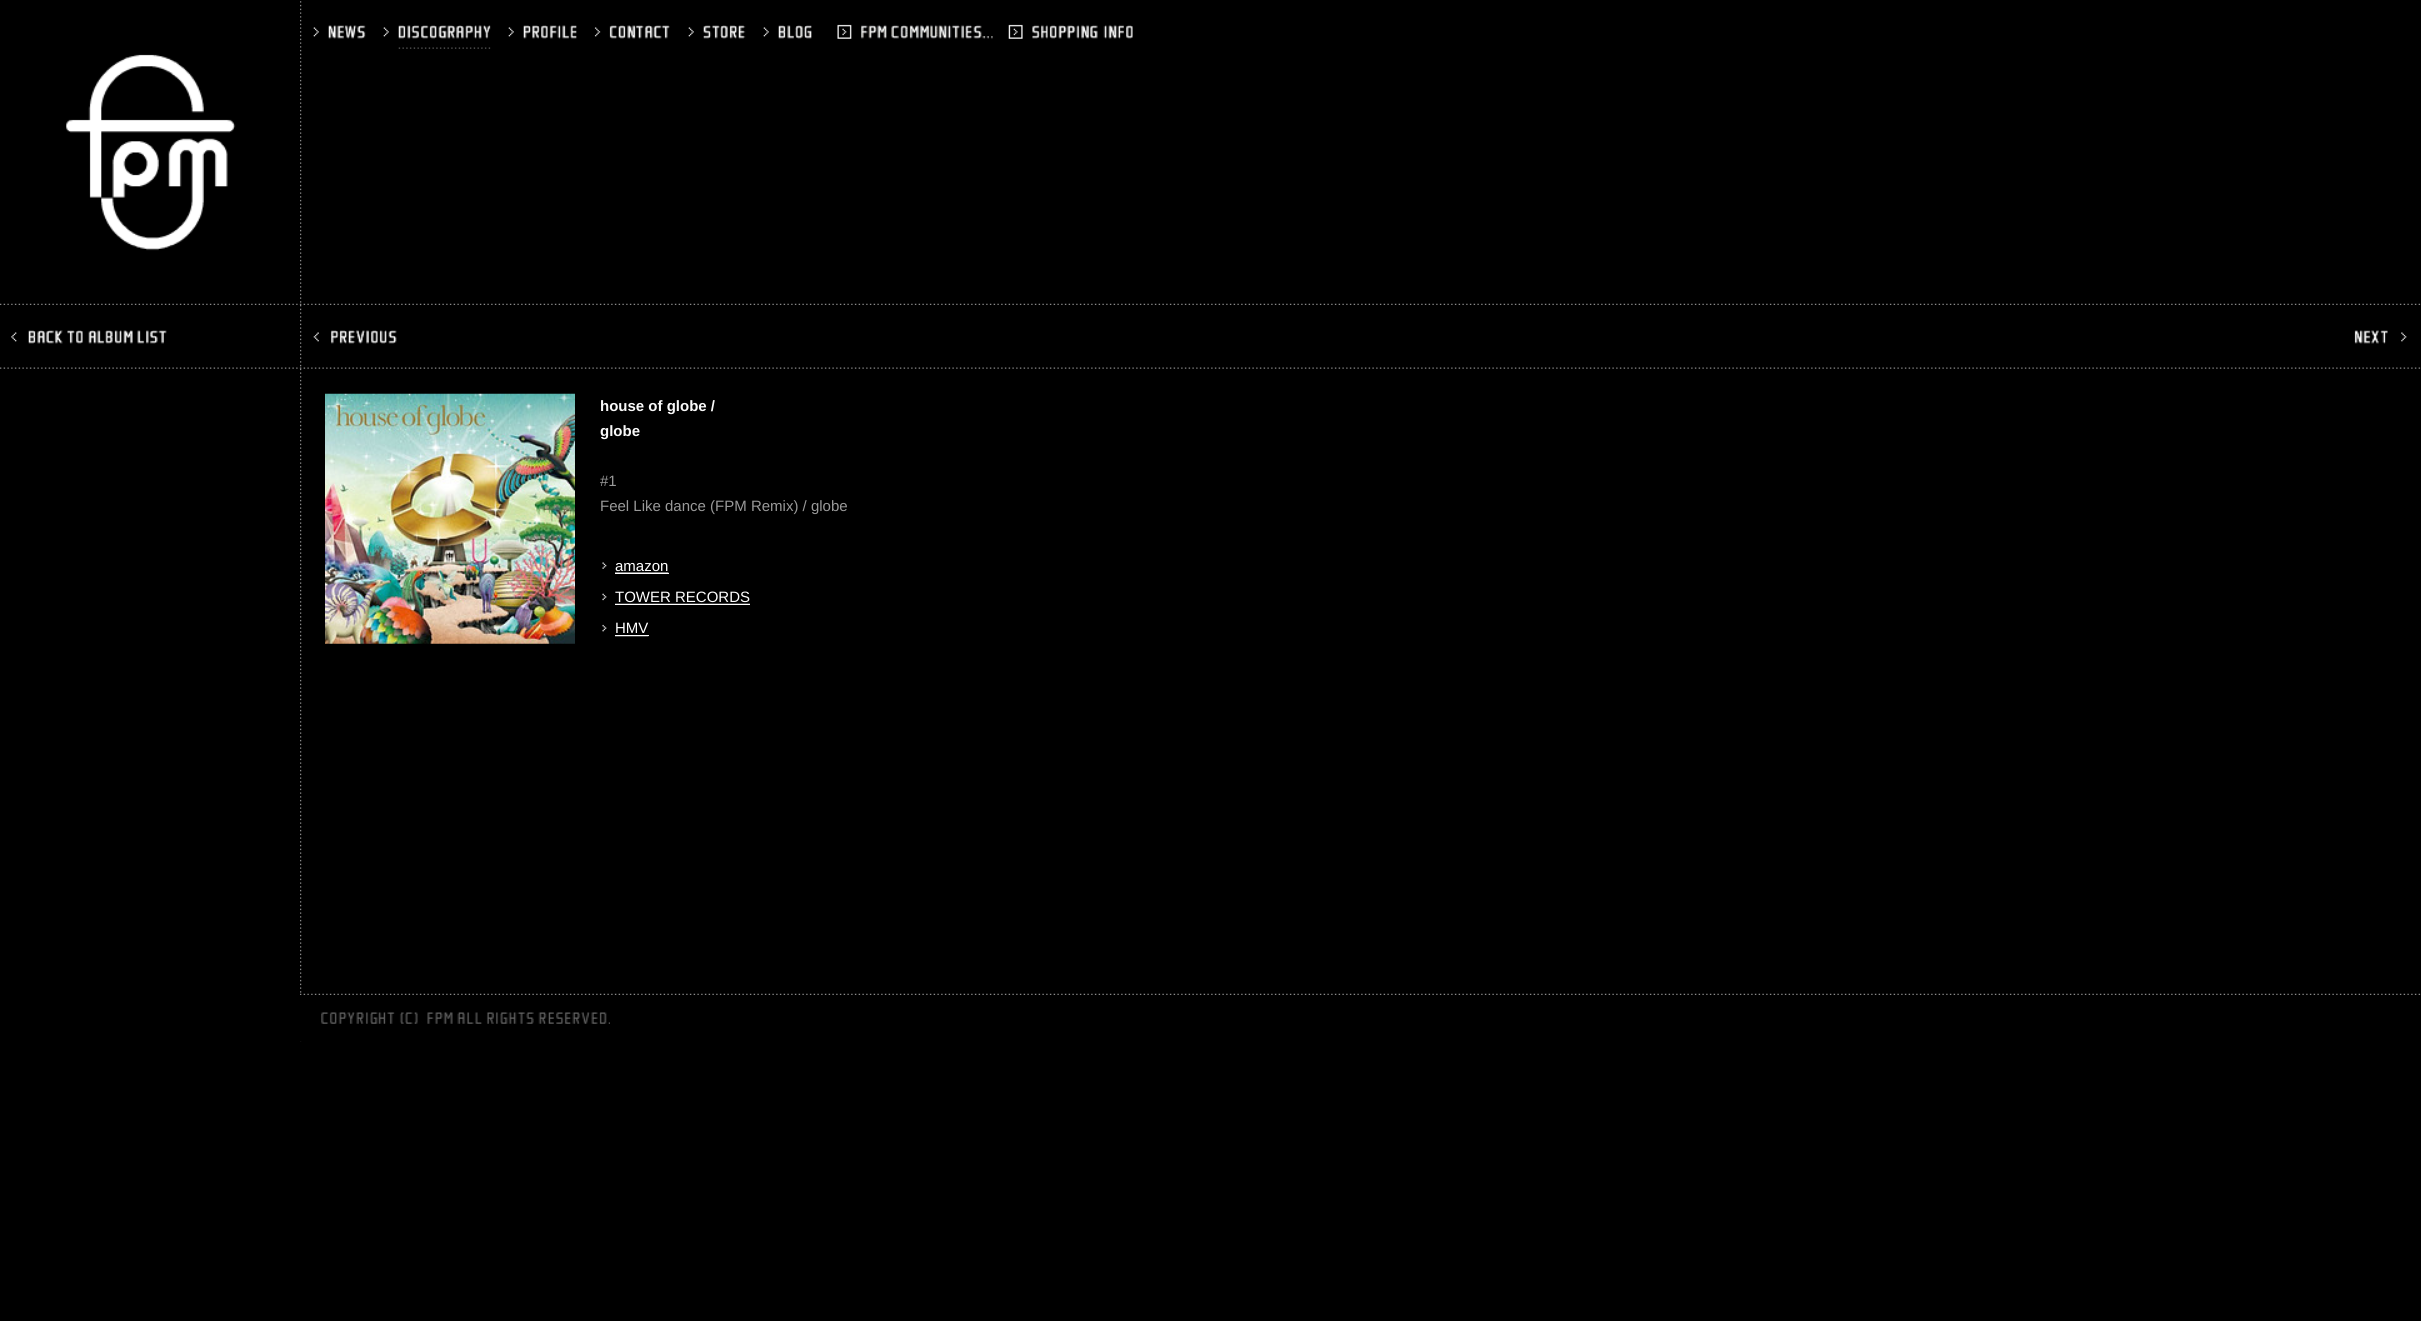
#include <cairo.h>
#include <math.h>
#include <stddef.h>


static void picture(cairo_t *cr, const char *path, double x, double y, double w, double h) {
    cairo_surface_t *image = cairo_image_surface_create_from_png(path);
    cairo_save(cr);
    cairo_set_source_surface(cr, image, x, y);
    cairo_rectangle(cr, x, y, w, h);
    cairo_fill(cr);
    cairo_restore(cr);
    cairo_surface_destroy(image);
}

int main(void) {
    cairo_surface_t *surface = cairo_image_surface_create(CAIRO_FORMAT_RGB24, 2421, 1321);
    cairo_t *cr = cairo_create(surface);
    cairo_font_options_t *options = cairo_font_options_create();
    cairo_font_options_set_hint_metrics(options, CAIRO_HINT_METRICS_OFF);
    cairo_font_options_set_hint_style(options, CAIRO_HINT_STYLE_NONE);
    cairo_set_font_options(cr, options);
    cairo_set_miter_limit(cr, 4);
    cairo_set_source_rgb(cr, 0, 0, 0);
    cairo_paint(cr);
    picture(cr, "img1.png", 300, 1, 2, 1041);
    picture(cr, "img2.png", 313, 25, 53, 14);
    picture(cr, "img3.png", 383, 25, 108, 24);
    picture(cr, "img4.png", 508, 25, 69, 14);
    picture(cr, "img5.png", 594, 25, 76, 14);
    picture(cr, "img6.png", 688, 25, 58, 14);
    picture(cr, "img7.png", 763, 25, 49, 14);
    picture(cr, "img8.png", 837, 24, 156, 15);
    picture(cr, "img9.png", 1008, 24, 125, 15);
    picture(cr, "img10.png", 66, 54, 170, 197);
    picture(cr, "img11.png", 0, 303, 2421, 2);
    picture(cr, "img12.png", 11, 330, 156, 14);
    picture(cr, "img13.png", 313, 330, 84, 14);
    picture(cr, "img14.png", 2354, 330, 53, 14);
    picture(cr, "img15.png", 0, 367, 2421, 2);
    picture(cr, "img16.png", 325, 393, 250, 251);
    cairo_select_font_face(cr, "Liberation Sans", CAIRO_FONT_SLANT_NORMAL, CAIRO_FONT_WEIGHT_BOLD);
    cairo_set_font_size(cr, 15);
    cairo_set_source_rgb(cr, 0.976, 0.976, 0.976);
    cairo_move_to(cr, 600, 411);
    cairo_show_text(cr, "house of globe /");
    cairo_move_to(cr, 600, 436);
    cairo_show_text(cr, "globe");
    cairo_select_font_face(cr, "Liberation Sans", CAIRO_FONT_SLANT_NORMAL, CAIRO_FONT_WEIGHT_NORMAL);
    cairo_set_source_rgb(cr, 0.6, 0.6, 0.6);
    cairo_move_to(cr, 600, 486);
    cairo_show_text(cr, "#1");
    cairo_move_to(cr, 600, 511);
    cairo_show_text(cr, "Feel Like dance (FPM Remix) / globe");
    picture(cr, "img17.png", 602, 562, 67, 12);
    cairo_set_source_rgb(cr, 1, 1, 1);
    cairo_move_to(cr, 615, 571);
    cairo_show_text(cr, "amazon");
    cairo_rectangle(cr, 615, 573, 54, 1);
    cairo_fill(cr);
    picture(cr, "img18.png", 602, 593, 148, 12);
    cairo_move_to(cr, 615, 602);
    cairo_show_text(cr, "TOWER RECORDS");
    picture(cr, "img19.png", 602, 624, 47, 13);
    cairo_move_to(cr, 615, 633);
    cairo_show_text(cr, "HMV");
    cairo_rectangle(cr, 648, 635, 1, 1);
    cairo_fill(cr);
    cairo_set_source_rgb(cr, 0, 0, 0);
    cairo_rectangle(cr, 300, 995, 2, 46);
    cairo_fill(cr);
    picture(cr, "img20.png", 300, 993, 2121, 2);
    picture(cr, "img21.png", 321, 1012, 289, 12);
    cairo_surface_write_to_png(surface, "page.png");
    cairo_font_options_destroy(options);
    cairo_destroy(cr);
    cairo_surface_destroy(surface);
    return 0;
}
